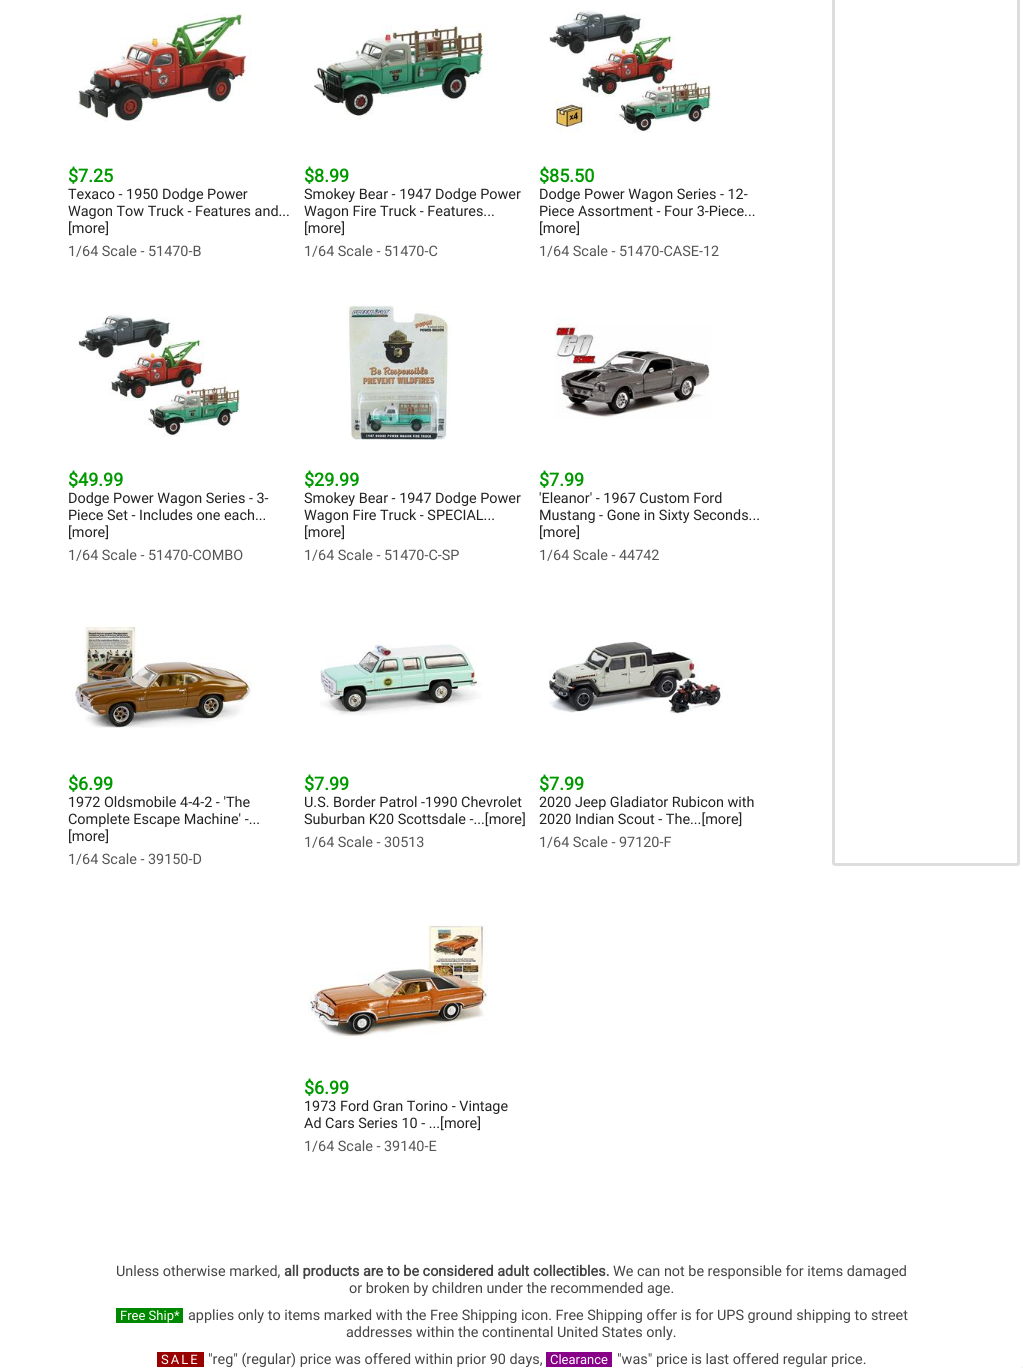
#include <cairo.h>
#include <math.h>
#include <stddef.h>


static void spaced_text(cairo_t *cr, double x, double y, const char *s, double letter, double word) {
    cairo_move_to(cr, x, y);
    while (*s) {
        char ch[5] = {0};
        int n = 0;
        do ch[n++] = *s++; while ((*s & 0xC0) == 0x80);
        cairo_show_text(cr, ch);
        cairo_rel_move_to(cr, letter + word * (*ch == ' '), 0);
    }
}

static void round_rect(cairo_t *cr, double x, double y, double w, double h, double r) {
    cairo_new_sub_path(cr);
    cairo_arc(cr, x + w - r, y + h - r, r, 0, M_PI / 2);
    cairo_arc(cr, x + r, y + h - r, r, M_PI / 2, M_PI);
    cairo_arc(cr, x + r, y + r, r, M_PI, 1.5 * M_PI);
    cairo_arc(cr, x + w - r, y + r, r, 1.5 * M_PI, 2 * M_PI);
    cairo_close_path(cr);
}

static void picture(cairo_t *cr, const char *path, double x, double y, double w, double h) {
    cairo_surface_t *image = cairo_image_surface_create_from_png(path);
    cairo_save(cr);
    cairo_set_source_surface(cr, image, x, y);
    cairo_rectangle(cr, x, y, w, h);
    cairo_fill(cr);
    cairo_restore(cr);
    cairo_surface_destroy(image);
}

int main(void) {
    cairo_surface_t *surface = cairo_image_surface_create(CAIRO_FORMAT_RGB24, 1023, 1368);
    cairo_t *cr = cairo_create(surface);
    cairo_font_options_t *options = cairo_font_options_create();
    cairo_font_options_set_hint_metrics(options, CAIRO_HINT_METRICS_OFF);
    cairo_font_options_set_hint_style(options, CAIRO_HINT_STYLE_NONE);
    cairo_set_font_options(cr, options);
    cairo_set_miter_limit(cr, 4);
    cairo_set_source_rgb(cr, 1, 1, 1);
    cairo_paint(cr);
    picture(cr, "img1.png", 78, 13, 174, 108);
    cairo_select_font_face(cr, "Roboto", CAIRO_FONT_SLANT_NORMAL, CAIRO_FONT_WEIGHT_BOLD);
    cairo_set_font_size(cr, 18);
    cairo_set_source_rgb(cr, 0, 0.6, 0);
    cairo_move_to(cr, 68, 182);
    cairo_show_text(cr, "$7.25");
    cairo_select_font_face(cr, "Roboto", CAIRO_FONT_SLANT_NORMAL, CAIRO_FONT_WEIGHT_NORMAL);
    cairo_set_font_size(cr, 14.4);
    cairo_set_source_rgb(cr, 0.133, 0.133, 0.133);
    cairo_move_to(cr, 68, 199);
    cairo_show_text(cr, "Texaco - 1950 Dodge Power");
    cairo_move_to(cr, 68, 216);
    cairo_show_text(cr, "Wagon Tow Truck - Features and...");
    cairo_move_to(cr, 68, 233);
    cairo_show_text(cr, "[more]");
    cairo_set_source_rgb(cr, 0.333, 0.333, 0.333);
    cairo_move_to(cr, 68, 256);
    cairo_show_text(cr, "1/64 Scale - 51470-B");
    picture(cr, "img2.png", 314, 25, 174, 96);
    cairo_select_font_face(cr, "Roboto", CAIRO_FONT_SLANT_NORMAL, CAIRO_FONT_WEIGHT_BOLD);
    cairo_set_font_size(cr, 18);
    cairo_set_source_rgb(cr, 0, 0.6, 0);
    cairo_move_to(cr, 304, 182);
    cairo_show_text(cr, "$8.99");
    cairo_select_font_face(cr, "Roboto", CAIRO_FONT_SLANT_NORMAL, CAIRO_FONT_WEIGHT_NORMAL);
    cairo_set_font_size(cr, 14.4);
    cairo_set_source_rgb(cr, 0.133, 0.133, 0.133);
    cairo_move_to(cr, 304, 199);
    cairo_show_text(cr, "Smokey Bear - 1947 Dodge Power");
    cairo_move_to(cr, 304, 216);
    cairo_show_text(cr, "Wagon Fire Truck - Features...");
    cairo_move_to(cr, 304, 233);
    cairo_show_text(cr, "[more]");
    cairo_set_source_rgb(cr, 0.333, 0.333, 0.333);
    cairo_move_to(cr, 304, 256);
    cairo_show_text(cr, "1/64 Scale - 51470-C");
    picture(cr, "img3.png", 549, 10, 162, 123);
    cairo_select_font_face(cr, "Roboto", CAIRO_FONT_SLANT_NORMAL, CAIRO_FONT_WEIGHT_BOLD);
    cairo_set_font_size(cr, 18);
    cairo_set_source_rgb(cr, 0, 0.6, 0);
    cairo_move_to(cr, 539, 182);
    cairo_show_text(cr, "$85.50");
    cairo_select_font_face(cr, "Roboto", CAIRO_FONT_SLANT_NORMAL, CAIRO_FONT_WEIGHT_NORMAL);
    cairo_set_font_size(cr, 14.4);
    cairo_set_source_rgb(cr, 0.133, 0.133, 0.133);
    cairo_move_to(cr, 539, 199);
    cairo_show_text(cr, "Dodge Power Wagon Series - 12-");
    cairo_move_to(cr, 539, 216);
    cairo_show_text(cr, "Piece Assortment - Four 3-Piece...");
    cairo_move_to(cr, 539, 233);
    cairo_show_text(cr, "[more]");
    cairo_set_source_rgb(cr, 0.333, 0.333, 0.333);
    cairo_move_to(cr, 539, 256);
    cairo_show_text(cr, "1/64 Scale - 51470-CASE-12");
    picture(cr, "img4.png", 78, 314, 162, 123);
    cairo_select_font_face(cr, "Roboto", CAIRO_FONT_SLANT_NORMAL, CAIRO_FONT_WEIGHT_BOLD);
    cairo_set_font_size(cr, 18);
    cairo_set_source_rgb(cr, 0, 0.6, 0);
    cairo_move_to(cr, 68, 486);
    cairo_show_text(cr, "$49.99");
    cairo_select_font_face(cr, "Roboto", CAIRO_FONT_SLANT_NORMAL, CAIRO_FONT_WEIGHT_NORMAL);
    cairo_set_font_size(cr, 14.4);
    cairo_set_source_rgb(cr, 0.133, 0.133, 0.133);
    cairo_move_to(cr, 68, 503);
    cairo_show_text(cr, "Dodge Power Wagon Series - 3-");
    cairo_move_to(cr, 68, 520);
    cairo_show_text(cr, "Piece Set - Includes one each...");
    cairo_move_to(cr, 68, 537);
    cairo_show_text(cr, "[more]");
    cairo_set_source_rgb(cr, 0.333, 0.333, 0.333);
    cairo_move_to(cr, 68, 560);
    cairo_show_text(cr, "1/64 Scale - 51470-COMBO");
    picture(cr, "img5.png", 347, 305, 104, 135);
    cairo_select_font_face(cr, "Roboto", CAIRO_FONT_SLANT_NORMAL, CAIRO_FONT_WEIGHT_BOLD);
    cairo_set_font_size(cr, 18);
    cairo_set_source_rgb(cr, 0, 0.6, 0);
    cairo_move_to(cr, 304, 486);
    cairo_show_text(cr, "$29.99");
    cairo_select_font_face(cr, "Roboto", CAIRO_FONT_SLANT_NORMAL, CAIRO_FONT_WEIGHT_NORMAL);
    cairo_set_font_size(cr, 14.4);
    cairo_set_source_rgb(cr, 0.133, 0.133, 0.133);
    cairo_move_to(cr, 304, 503);
    cairo_show_text(cr, "Smokey Bear - 1947 Dodge Power");
    cairo_move_to(cr, 304, 520);
    cairo_show_text(cr, "Wagon Fire Truck - SPECIAL...");
    cairo_move_to(cr, 304, 537);
    cairo_show_text(cr, "[more]");
    cairo_set_source_rgb(cr, 0.333, 0.333, 0.333);
    cairo_move_to(cr, 304, 560);
    cairo_show_text(cr, "1/64 Scale - 51470-C-SP");
    picture(cr, "img6.png", 554, 317, 157, 102);
    cairo_select_font_face(cr, "Roboto", CAIRO_FONT_SLANT_NORMAL, CAIRO_FONT_WEIGHT_BOLD);
    cairo_set_font_size(cr, 18);
    cairo_set_source_rgb(cr, 0, 0.6, 0);
    cairo_move_to(cr, 539, 486);
    cairo_show_text(cr, "$7.99");
    cairo_select_font_face(cr, "Roboto", CAIRO_FONT_SLANT_NORMAL, CAIRO_FONT_WEIGHT_NORMAL);
    cairo_set_font_size(cr, 14.4);
    cairo_set_source_rgb(cr, 0.133, 0.133, 0.133);
    cairo_move_to(cr, 539, 503);
    cairo_show_text(cr, "'Eleanor' - 1967 Custom Ford");
    cairo_move_to(cr, 539, 520);
    cairo_show_text(cr, "Mustang - Gone in Sixty Seconds...");
    cairo_move_to(cr, 539, 537);
    cairo_show_text(cr, "[more]");
    cairo_set_source_rgb(cr, 0.333, 0.333, 0.333);
    cairo_move_to(cr, 539, 560);
    cairo_show_text(cr, "1/64 Scale - 44742");
    picture(cr, "img7.png", 72, 625, 180, 104);
    cairo_select_font_face(cr, "Roboto", CAIRO_FONT_SLANT_NORMAL, CAIRO_FONT_WEIGHT_BOLD);
    cairo_set_font_size(cr, 18);
    cairo_set_source_rgb(cr, 0, 0.6, 0);
    cairo_move_to(cr, 68, 790);
    cairo_show_text(cr, "$6.99");
    cairo_select_font_face(cr, "Roboto", CAIRO_FONT_SLANT_NORMAL, CAIRO_FONT_WEIGHT_NORMAL);
    cairo_set_font_size(cr, 14.4);
    cairo_set_source_rgb(cr, 0.133, 0.133, 0.133);
    cairo_move_to(cr, 68, 807);
    cairo_show_text(cr, "1972 Oldsmobile 4-4-2 - 'The");
    cairo_move_to(cr, 68, 824);
    cairo_show_text(cr, "Complete Escape Machine' -...");
    cairo_move_to(cr, 68, 841);
    cairo_show_text(cr, "[more]");
    cairo_set_source_rgb(cr, 0.333, 0.333, 0.333);
    cairo_move_to(cr, 68, 864);
    cairo_show_text(cr, "1/64 Scale - 39150-D");
    picture(cr, "img8.png", 320, 644, 162, 72);
    cairo_select_font_face(cr, "Roboto", CAIRO_FONT_SLANT_NORMAL, CAIRO_FONT_WEIGHT_BOLD);
    cairo_set_font_size(cr, 18);
    cairo_set_source_rgb(cr, 0, 0.6, 0);
    cairo_move_to(cr, 304, 790);
    cairo_show_text(cr, "$7.99");
    cairo_select_font_face(cr, "Roboto", CAIRO_FONT_SLANT_NORMAL, CAIRO_FONT_WEIGHT_NORMAL);
    cairo_set_font_size(cr, 14.4);
    cairo_set_source_rgb(cr, 0.133, 0.133, 0.133);
    cairo_move_to(cr, 304, 807);
    cairo_show_text(cr, "U.S. Border Patrol -1990 Chevrolet");
    cairo_move_to(cr, 304, 824);
    cairo_show_text(cr, "Suburban K20 Scottsdale -...[more]");
    cairo_set_source_rgb(cr, 0.333, 0.333, 0.333);
    cairo_move_to(cr, 304, 847);
    cairo_show_text(cr, "1/64 Scale - 30513");
    picture(cr, "img9.png", 548, 639, 175, 77);
    cairo_select_font_face(cr, "Roboto", CAIRO_FONT_SLANT_NORMAL, CAIRO_FONT_WEIGHT_BOLD);
    cairo_set_font_size(cr, 18);
    cairo_set_source_rgb(cr, 0, 0.6, 0);
    cairo_move_to(cr, 539, 790);
    cairo_show_text(cr, "$7.99");
    cairo_select_font_face(cr, "Roboto", CAIRO_FONT_SLANT_NORMAL, CAIRO_FONT_WEIGHT_NORMAL);
    cairo_set_font_size(cr, 14.4);
    cairo_set_source_rgb(cr, 0.133, 0.133, 0.133);
    cairo_move_to(cr, 539, 807);
    cairo_show_text(cr, "2020 Jeep Gladiator Rubicon with");
    cairo_move_to(cr, 539, 824);
    cairo_show_text(cr, "2020 Indian Scout - The...[more]");
    cairo_set_source_rgb(cr, 0.333, 0.333, 0.333);
    cairo_move_to(cr, 539, 847);
    cairo_show_text(cr, "1/64 Scale - 97120-F");
    picture(cr, "img10.png", 308, 925, 180, 114);
    cairo_select_font_face(cr, "Roboto", CAIRO_FONT_SLANT_NORMAL, CAIRO_FONT_WEIGHT_BOLD);
    cairo_set_font_size(cr, 18);
    cairo_set_source_rgb(cr, 0, 0.6, 0);
    cairo_move_to(cr, 304, 1094);
    cairo_show_text(cr, "$6.99");
    cairo_select_font_face(cr, "Roboto", CAIRO_FONT_SLANT_NORMAL, CAIRO_FONT_WEIGHT_NORMAL);
    cairo_set_font_size(cr, 14.4);
    cairo_set_source_rgb(cr, 0.133, 0.133, 0.133);
    cairo_move_to(cr, 304, 1111);
    cairo_show_text(cr, "1973 Ford Gran Torino - Vintage");
    cairo_move_to(cr, 304, 1128);
    cairo_show_text(cr, "Ad Cars Series 10 - ...[more]");
    cairo_set_source_rgb(cr, 0.333, 0.333, 0.333);
    cairo_move_to(cr, 304, 1151);
    cairo_show_text(cr, "1/64 Scale - 39140-E");
    round_rect(cr, 833.5, -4.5, 185, 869, 1.5);
    cairo_set_source_rgb(cr, 0.867, 0.867, 0.867);
    cairo_set_line_width(cr, 3);
    cairo_stroke(cr);
    cairo_set_source_rgb(cr, 0.267, 0.267, 0.267);
    cairo_move_to(cr, 116, 1276);
    cairo_show_text(cr, "Unless otherwise marked,");
    cairo_select_font_face(cr, "Roboto", CAIRO_FONT_SLANT_NORMAL, CAIRO_FONT_WEIGHT_BOLD);
    cairo_move_to(cr, 284, 1276);
    cairo_show_text(cr, "all products are to be considered adult collectibles.");
    cairo_select_font_face(cr, "Roboto", CAIRO_FONT_SLANT_NORMAL, CAIRO_FONT_WEIGHT_NORMAL);
    cairo_move_to(cr, 613, 1276);
    cairo_show_text(cr, "We can not be responsible for items damaged");
    cairo_move_to(cr, 349, 1293);
    cairo_show_text(cr, "or broken by children under the recommended age.");
    cairo_set_source_rgb(cr, 0, 0.533, 0);
    cairo_rectangle(cr, 116, 1308, 67, 15);
    cairo_fill(cr);
    cairo_set_font_size(cr, 13);
    cairo_set_source_rgb(cr, 1, 1, 1);
    cairo_move_to(cr, 120, 1320);
    cairo_show_text(cr, "Free Ship*");
    cairo_set_font_size(cr, 14.4);
    cairo_set_source_rgb(cr, 0.267, 0.267, 0.267);
    cairo_move_to(cr, 188, 1320);
    cairo_show_text(cr, "applies only to items marked with the Free Shipping icon. Free Shipping offer is for UPS ground shipping to street");
    cairo_move_to(cr, 346, 1337);
    cairo_show_text(cr, "addresses within the continental United States only.");
    cairo_set_source_rgb(cr, 0.6, 0, 0);
    cairo_rectangle(cr, 157, 1352, 47, 15);
    cairo_fill(cr);
    cairo_set_font_size(cr, 13);
    cairo_set_source_rgb(cr, 1, 1, 1);
    spaced_text(cr, 161, 1364, "SALE", 2, 0);
    cairo_set_font_size(cr, 14.4);
    cairo_set_source_rgb(cr, 0.267, 0.267, 0.267);
    cairo_move_to(cr, 208, 1364);
    cairo_show_text(cr, "\"reg\" (regular) price was offered within prior 90 days,");
    cairo_set_source_rgb(cr, 0.533, 0, 0.533);
    cairo_rectangle(cr, 546, 1352, 66, 15);
    cairo_fill(cr);
    cairo_set_font_size(cr, 13);
    cairo_set_source_rgb(cr, 1, 1, 1);
    cairo_move_to(cr, 550, 1364);
    cairo_show_text(cr, "Clearance");
    cairo_set_font_size(cr, 14.4);
    cairo_set_source_rgb(cr, 0.267, 0.267, 0.267);
    cairo_move_to(cr, 617, 1364);
    cairo_show_text(cr, "\"was\" price is last offered regular price.");
    cairo_set_source_rgb(cr, 0.961, 0.961, 0.961);
    cairo_rectangle(cr, 1021, 1366, 2, 2);
    cairo_fill(cr);
    cairo_surface_write_to_png(surface, "page.png");
    cairo_font_options_destroy(options);
    cairo_destroy(cr);
    cairo_surface_destroy(surface);
    return 0;
}
